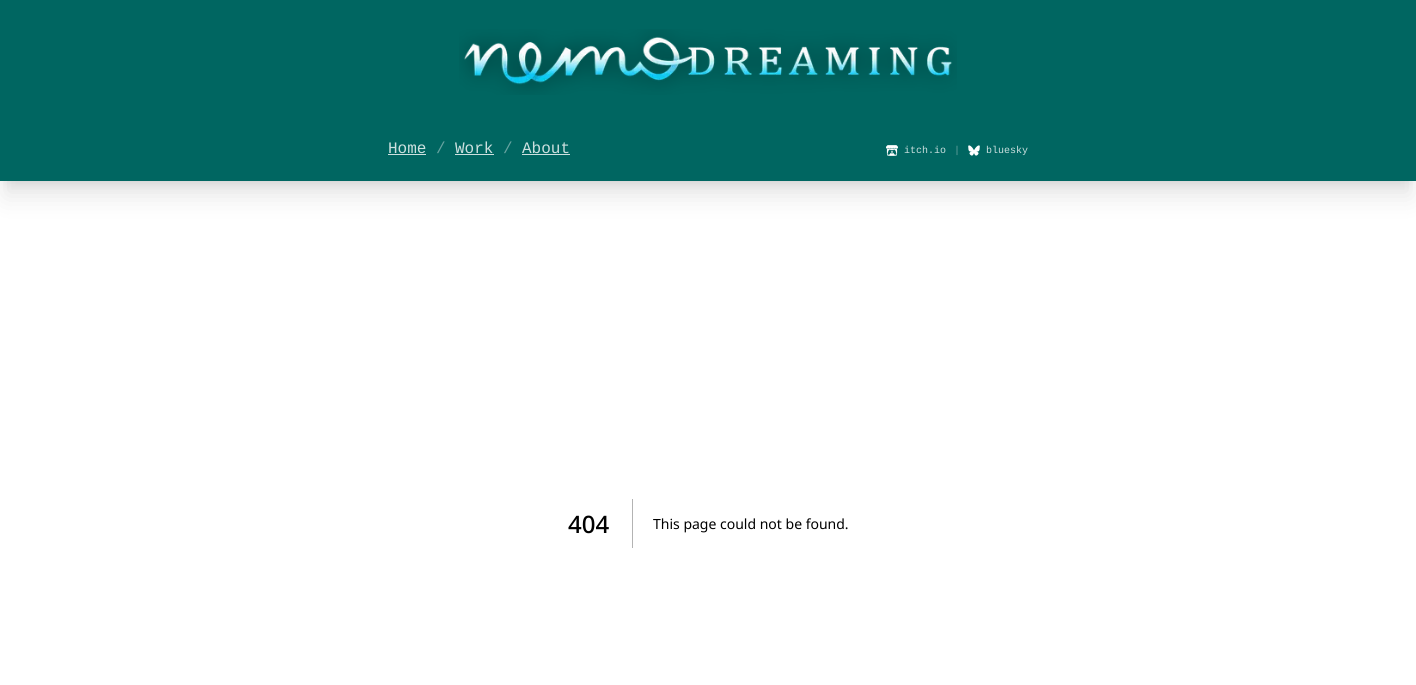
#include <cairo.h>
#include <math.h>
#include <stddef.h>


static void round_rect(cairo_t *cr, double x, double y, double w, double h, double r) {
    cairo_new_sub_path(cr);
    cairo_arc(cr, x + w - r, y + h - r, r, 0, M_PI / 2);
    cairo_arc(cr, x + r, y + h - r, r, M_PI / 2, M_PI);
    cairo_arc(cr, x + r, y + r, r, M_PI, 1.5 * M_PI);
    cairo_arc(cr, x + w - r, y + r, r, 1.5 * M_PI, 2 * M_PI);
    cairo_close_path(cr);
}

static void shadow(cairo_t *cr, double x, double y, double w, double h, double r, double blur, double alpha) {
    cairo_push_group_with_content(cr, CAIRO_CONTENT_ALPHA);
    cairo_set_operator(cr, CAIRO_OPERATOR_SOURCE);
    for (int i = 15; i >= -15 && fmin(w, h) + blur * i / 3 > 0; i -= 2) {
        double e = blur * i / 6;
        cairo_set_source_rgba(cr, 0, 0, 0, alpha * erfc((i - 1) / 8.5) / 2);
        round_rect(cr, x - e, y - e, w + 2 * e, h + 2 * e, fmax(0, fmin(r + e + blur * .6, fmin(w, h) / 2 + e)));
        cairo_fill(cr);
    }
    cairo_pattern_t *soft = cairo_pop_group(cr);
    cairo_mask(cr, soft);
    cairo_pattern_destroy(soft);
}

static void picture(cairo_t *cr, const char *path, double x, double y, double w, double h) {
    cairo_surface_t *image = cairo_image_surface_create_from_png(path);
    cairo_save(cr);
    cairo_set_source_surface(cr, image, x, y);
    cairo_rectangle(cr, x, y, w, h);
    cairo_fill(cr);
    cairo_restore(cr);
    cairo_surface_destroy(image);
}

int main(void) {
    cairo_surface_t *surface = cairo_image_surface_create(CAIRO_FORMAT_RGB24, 1416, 685);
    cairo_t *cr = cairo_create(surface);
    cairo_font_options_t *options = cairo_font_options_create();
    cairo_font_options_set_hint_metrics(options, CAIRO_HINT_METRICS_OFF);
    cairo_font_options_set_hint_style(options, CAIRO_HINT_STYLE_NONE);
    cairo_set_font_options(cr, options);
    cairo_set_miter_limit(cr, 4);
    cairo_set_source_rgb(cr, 1, 1, 1);
    cairo_paint(cr);
    cairo_set_source_rgb(cr, 0, 0, 0);
    shadow(cr, 6, 14, 1404, 169, 0, 5, 0.1);
    shadow(cr, 5, 25, 1406, 171, 0, 12.5, 0.1);
    cairo_set_source_rgb(cr, 0, 0.4, 0.38);
    cairo_rectangle(cr, 0, 0, 1416, 181);
    cairo_fill(cr);
    picture(cr, "img1.png", 459, 29, 498, 66);
    cairo_select_font_face(cr, "Liberation Mono", CAIRO_FONT_SLANT_NORMAL, CAIRO_FONT_WEIGHT_NORMAL);
    cairo_set_font_size(cr, 16);
    cairo_set_source_rgb(cr, 0.8, 0.878, 0.875);
    cairo_move_to(cr, 388, 153);
    cairo_show_text(cr, "Home");
    cairo_rectangle(cr, 388, 154, 38, 1);
    cairo_fill(cr);
    cairo_set_source_rgb(cr, 0.4, 0.639, 0.627);
    cairo_move_to(cr, 436, 153);
    cairo_show_text(cr, "/");
    cairo_set_source_rgb(cr, 0.8, 0.878, 0.875);
    cairo_move_to(cr, 455, 153);
    cairo_show_text(cr, "Work");
    cairo_rectangle(cr, 455, 154, 39, 1);
    cairo_fill(cr);
    cairo_set_source_rgb(cr, 0.4, 0.639, 0.627);
    cairo_move_to(cr, 503, 153);
    cairo_show_text(cr, "/");
    cairo_set_source_rgb(cr, 0.8, 0.878, 0.875);
    cairo_move_to(cr, 522, 153);
    cairo_show_text(cr, "About");
    cairo_rectangle(cr, 522, 154, 48, 1);
    cairo_fill(cr);
    picture(cr, "img2.png", 886, 145, 12, 11);
    cairo_set_font_size(cr, 10);
    cairo_move_to(cr, 904, 153);
    cairo_show_text(cr, "itch.io");
    cairo_set_source_rgb(cr, 0.4, 0.639, 0.627);
    cairo_move_to(cr, 954, 153);
    cairo_show_text(cr, "|");
    picture(cr, "img3.png", 968, 145, 12, 11);
    cairo_set_source_rgb(cr, 0.8, 0.878, 0.875);
    cairo_move_to(cr, 986, 153);
    cairo_show_text(cr, "bluesky");
    cairo_set_source_rgb(cr, 0.702, 0.702, 0.702);
    cairo_rectangle(cr, 632, 499, 1, 49);
    cairo_fill(cr);
    cairo_select_font_face(cr, "Noto Sans Medium", CAIRO_FONT_SLANT_NORMAL, CAIRO_FONT_WEIGHT_NORMAL);
    cairo_set_font_size(cr, 24);
    cairo_set_source_rgb(cr, 0, 0, 0);
    cairo_move_to(cr, 568, 533);
    cairo_show_text(cr, "404");
    cairo_select_font_face(cr, "Noto Sans", CAIRO_FONT_SLANT_NORMAL, CAIRO_FONT_WEIGHT_NORMAL);
    cairo_set_font_size(cr, 14);
    cairo_move_to(cr, 653, 529);
    cairo_show_text(cr, "This page could not be found.");
    cairo_surface_write_to_png(surface, "page.png");
    cairo_font_options_destroy(options);
    cairo_destroy(cr);
    cairo_surface_destroy(surface);
    return 0;
}
